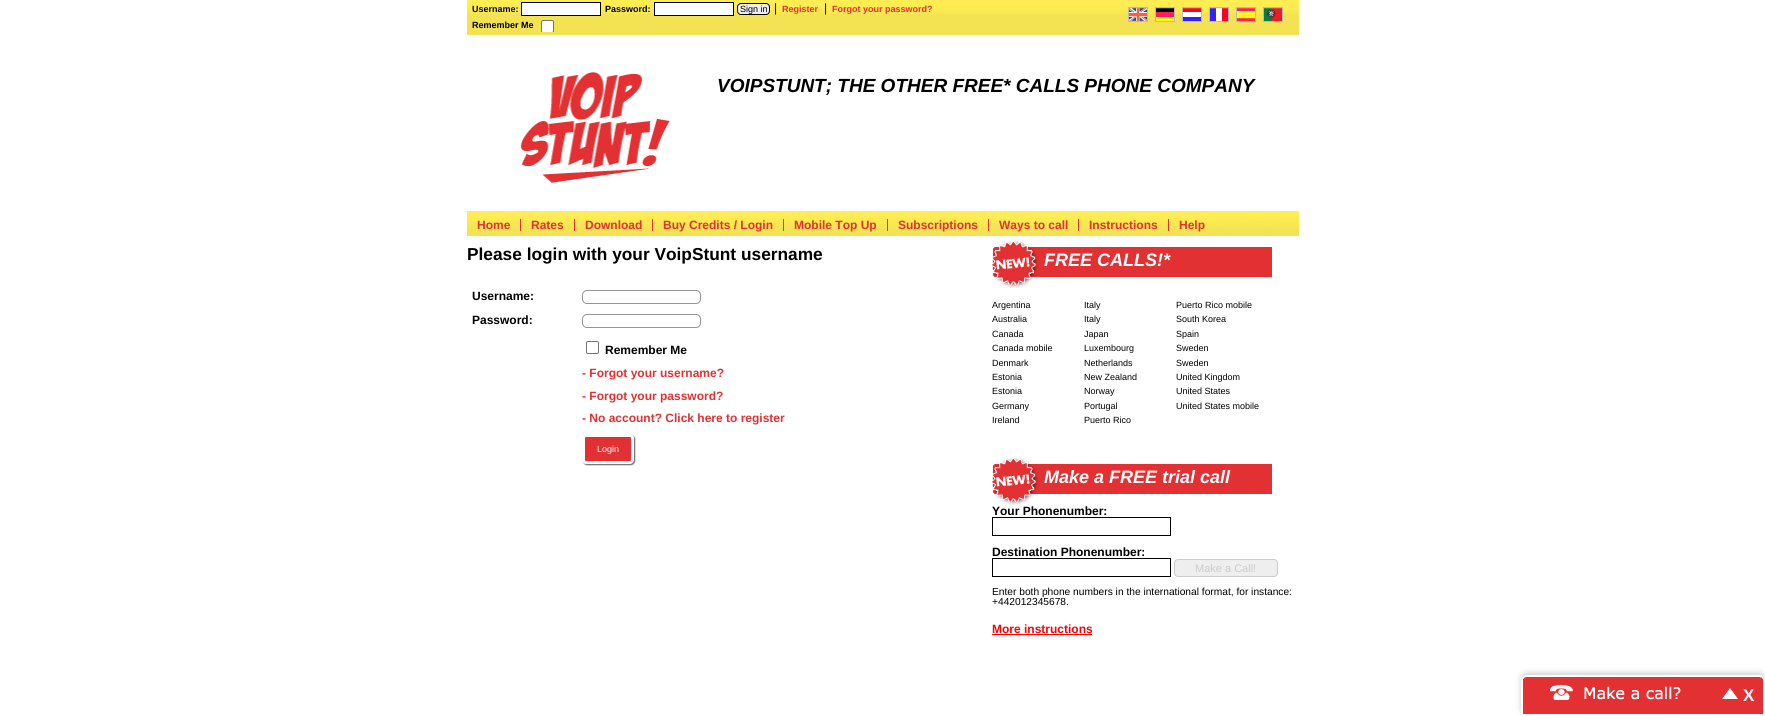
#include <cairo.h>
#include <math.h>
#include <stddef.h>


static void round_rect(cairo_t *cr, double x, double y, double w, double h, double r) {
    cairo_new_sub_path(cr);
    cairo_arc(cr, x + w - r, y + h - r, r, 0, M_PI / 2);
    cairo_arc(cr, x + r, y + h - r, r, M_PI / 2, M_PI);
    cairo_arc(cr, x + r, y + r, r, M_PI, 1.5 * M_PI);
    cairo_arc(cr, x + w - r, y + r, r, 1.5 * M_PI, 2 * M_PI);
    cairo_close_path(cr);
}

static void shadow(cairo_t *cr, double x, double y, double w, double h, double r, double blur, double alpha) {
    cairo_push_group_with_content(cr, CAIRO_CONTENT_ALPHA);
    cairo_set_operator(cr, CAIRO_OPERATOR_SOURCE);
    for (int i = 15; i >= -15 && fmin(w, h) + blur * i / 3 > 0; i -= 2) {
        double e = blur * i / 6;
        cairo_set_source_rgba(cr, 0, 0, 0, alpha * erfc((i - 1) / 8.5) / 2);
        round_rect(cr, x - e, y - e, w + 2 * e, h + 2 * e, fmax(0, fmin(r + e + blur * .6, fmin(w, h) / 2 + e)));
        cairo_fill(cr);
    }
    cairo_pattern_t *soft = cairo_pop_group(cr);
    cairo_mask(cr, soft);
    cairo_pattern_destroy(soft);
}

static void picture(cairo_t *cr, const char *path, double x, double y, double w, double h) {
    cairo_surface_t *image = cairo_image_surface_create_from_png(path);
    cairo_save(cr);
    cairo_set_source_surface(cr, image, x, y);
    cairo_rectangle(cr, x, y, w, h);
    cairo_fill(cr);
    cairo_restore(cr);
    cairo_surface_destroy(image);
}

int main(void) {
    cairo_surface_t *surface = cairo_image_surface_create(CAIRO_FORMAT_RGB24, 1765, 716);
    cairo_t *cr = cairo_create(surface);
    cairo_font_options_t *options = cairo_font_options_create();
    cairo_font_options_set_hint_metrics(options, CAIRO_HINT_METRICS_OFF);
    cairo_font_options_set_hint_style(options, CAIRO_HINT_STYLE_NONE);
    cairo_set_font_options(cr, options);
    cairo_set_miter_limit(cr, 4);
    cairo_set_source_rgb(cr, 1, 1, 1);
    cairo_paint(cr);
    cairo_set_source_rgb(cr, 0.953, 0.89, 0.322);
    cairo_rectangle(cr, 467, 14, 832, 21);
    cairo_fill(cr);
    picture(cr, "img1.png", 467, 0, 832, 14);
    cairo_select_font_face(cr, "Liberation Sans", CAIRO_FONT_SLANT_NORMAL, CAIRO_FONT_WEIGHT_BOLD);
    cairo_set_font_size(cr, 9);
    cairo_set_source_rgb(cr, 0, 0, 0);
    cairo_move_to(cr, 472, 12);
    cairo_show_text(cr, "Username:");
    cairo_set_source_rgb(cr, 1, 1, 1);
    cairo_rectangle(cr, 521.5, 2.5, 79, 13);
    cairo_fill_preserve(cr);
    cairo_set_source_rgb(cr, 0, 0, 0);
    cairo_set_line_width(cr, 1);
    cairo_stroke(cr);
    cairo_move_to(cr, 605, 12);
    cairo_show_text(cr, "Password:");
    cairo_set_source_rgb(cr, 1, 1, 1);
    cairo_rectangle(cr, 654.5, 2.5, 79, 13);
    cairo_fill_preserve(cr);
    cairo_set_source_rgb(cr, 0, 0, 0);
    cairo_stroke(cr);
    cairo_set_source_rgb(cr, 0.933, 0.933, 0.933);
    round_rect(cr, 737.5, 3.5, 32, 11, 3.5);
    cairo_fill_preserve(cr);
    cairo_set_source_rgb(cr, 0, 0, 0);
    cairo_stroke(cr);
    cairo_select_font_face(cr, "Liberation Sans", CAIRO_FONT_SLANT_NORMAL, CAIRO_FONT_WEIGHT_NORMAL);
    cairo_move_to(cr, 740, 12);
    cairo_show_text(cr, "Sign in");
    cairo_set_font_size(cr, 12);
    cairo_move_to(cr, 774, 12);
    cairo_show_text(cr, "|");
    cairo_select_font_face(cr, "Liberation Sans", CAIRO_FONT_SLANT_NORMAL, CAIRO_FONT_WEIGHT_BOLD);
    cairo_set_font_size(cr, 9);
    cairo_set_source_rgb(cr, 0.89, 0.188, 0.196);
    cairo_move_to(cr, 782, 12);
    cairo_show_text(cr, "Register");
    cairo_select_font_face(cr, "Liberation Sans", CAIRO_FONT_SLANT_NORMAL, CAIRO_FONT_WEIGHT_NORMAL);
    cairo_set_font_size(cr, 12);
    cairo_set_source_rgb(cr, 0, 0, 0);
    cairo_move_to(cr, 824, 12);
    cairo_show_text(cr, "|");
    cairo_select_font_face(cr, "Liberation Sans", CAIRO_FONT_SLANT_NORMAL, CAIRO_FONT_WEIGHT_BOLD);
    cairo_set_font_size(cr, 9);
    cairo_set_source_rgb(cr, 0.89, 0.188, 0.196);
    cairo_move_to(cr, 832, 12);
    cairo_show_text(cr, "Forgot your password?");
    cairo_set_source_rgb(cr, 0, 0, 0);
    cairo_move_to(cr, 472, 28);
    cairo_show_text(cr, "Remember Me");
    cairo_save(cr);
    cairo_rectangle(cr, 467, 0, 660, 32);
    cairo_clip(cr);
    cairo_set_source_rgb(cr, 1, 1, 1);
    round_rect(cr, 541.5, 20.5, 12, 12, 1.5);
    cairo_fill_preserve(cr);
    cairo_set_source_rgb(cr, 0.463, 0.463, 0.463);
    cairo_stroke(cr);
    cairo_restore(cr);
    picture(cr, "img2.png", 1128, 7, 20, 15);
    picture(cr, "img3.png", 1155, 7, 20, 15);
    picture(cr, "img4.png", 1182, 7, 20, 15);
    picture(cr, "img5.png", 1209, 7, 20, 15);
    picture(cr, "img6.png", 1236, 7, 20, 15);
    picture(cr, "img7.png", 1263, 7, 20, 15);
    picture(cr, "img8.png", 521, 72, 149, 111);
    cairo_select_font_face(cr, "Liberation Sans", CAIRO_FONT_SLANT_ITALIC, CAIRO_FONT_WEIGHT_BOLD);
    cairo_set_font_size(cr, 19);
    cairo_move_to(cr, 717, 92);
    cairo_show_text(cr, "VOIPSTUNT; THE OTHER FREE* CALLS PHONE COMPANY");
    picture(cr, "img9.png", 467, 211, 832, 25);
    cairo_set_source_rgb(cr, 0.89, 0.188, 0.196);
    cairo_rectangle(cr, 520, 219, 1, 12);
    cairo_fill(cr);
    cairo_select_font_face(cr, "Liberation Sans", CAIRO_FONT_SLANT_NORMAL, CAIRO_FONT_WEIGHT_BOLD);
    cairo_set_font_size(cr, 12);
    cairo_move_to(cr, 477, 229);
    cairo_show_text(cr, "Home");
    cairo_rectangle(cr, 574, 219, 1, 12);
    cairo_fill(cr);
    cairo_move_to(cr, 531, 229);
    cairo_show_text(cr, "Rates");
    cairo_rectangle(cr, 652, 219, 1, 12);
    cairo_fill(cr);
    cairo_move_to(cr, 585, 229);
    cairo_show_text(cr, "Download");
    cairo_rectangle(cr, 783, 219, 1, 12);
    cairo_fill(cr);
    cairo_move_to(cr, 663, 229);
    cairo_show_text(cr, "Buy Credits / Login");
    cairo_rectangle(cr, 887, 219, 1, 12);
    cairo_fill(cr);
    cairo_move_to(cr, 794, 229);
    cairo_show_text(cr, "Mobile Top Up");
    cairo_rectangle(cr, 988, 219, 1, 12);
    cairo_fill(cr);
    cairo_move_to(cr, 898, 229);
    cairo_show_text(cr, "Subscriptions");
    cairo_rectangle(cr, 1078, 219, 1, 12);
    cairo_fill(cr);
    cairo_move_to(cr, 999, 229);
    cairo_show_text(cr, "Ways to call");
    cairo_rectangle(cr, 1168, 219, 1, 12);
    cairo_fill(cr);
    cairo_move_to(cr, 1089, 229);
    cairo_show_text(cr, "Instructions");
    cairo_move_to(cr, 1179, 229);
    cairo_show_text(cr, "Help");
    cairo_set_font_size(cr, 17.3);
    cairo_set_source_rgb(cr, 0, 0, 0);
    cairo_move_to(cr, 467, 260);
    cairo_show_text(cr, "Please login with your VoipStunt username");
    cairo_set_font_size(cr, 12);
    cairo_move_to(cr, 472, 300);
    cairo_show_text(cr, "Username:");
    round_rect(cr, 582.5, 290.5, 118, 13, 4.5);
    cairo_set_source_rgb(cr, 0.588, 0.588, 0.588);
    cairo_stroke(cr);
    cairo_set_source_rgb(cr, 0, 0, 0);
    cairo_move_to(cr, 472, 324);
    cairo_show_text(cr, "Password:");
    round_rect(cr, 582.5, 314.5, 118, 13, 4.5);
    cairo_set_source_rgb(cr, 0.588, 0.588, 0.588);
    cairo_stroke(cr);
    round_rect(cr, 586.5, 341.5, 12, 12, 1.5);
    cairo_set_source_rgb(cr, 0.463, 0.463, 0.463);
    cairo_stroke(cr);
    cairo_set_source_rgb(cr, 0, 0, 0);
    cairo_move_to(cr, 605, 354);
    cairo_show_text(cr, "Remember Me");
    cairo_set_source_rgb(cr, 0.89, 0.188, 0.196);
    cairo_move_to(cr, 582, 377);
    cairo_show_text(cr, "- Forgot your username?");
    cairo_move_to(cr, 582, 400);
    cairo_show_text(cr, "- Forgot your password?");
    cairo_move_to(cr, 582, 422);
    cairo_show_text(cr, "- No account? Click here to register");
    cairo_set_source_rgb(cr, 0.4, 0.4, 0.4);
    shadow(cr, 583, 435, 52, 30, 4, 0.5, 1);
    cairo_set_source_rgb(cr, 0.89, 0.188, 0.2);
    round_rect(cr, 583.5, 435.5, 49, 27, 2.5);
    cairo_fill_preserve(cr);
    cairo_set_source_rgb(cr, 1, 1, 1);
    cairo_set_line_width(cr, 3);
    cairo_stroke(cr);
    cairo_select_font_face(cr, "Liberation Sans", CAIRO_FONT_SLANT_NORMAL, CAIRO_FONT_WEIGHT_NORMAL);
    cairo_set_font_size(cr, 9);
    cairo_move_to(cr, 597, 452);
    cairo_show_text(cr, "Login");
    picture(cr, "img10.png", 992, 241, 47, 47);
    cairo_set_source_rgb(cr, 0.89, 0.188, 0.196);
    cairo_rectangle(cr, 1039, 247, 233, 30);
    cairo_fill(cr);
    cairo_select_font_face(cr, "Liberation Sans", CAIRO_FONT_SLANT_ITALIC, CAIRO_FONT_WEIGHT_BOLD);
    cairo_set_font_size(cr, 18);
    cairo_set_source_rgb(cr, 1, 1, 1);
    cairo_move_to(cr, 1044, 266);
    cairo_show_text(cr, "FREE CALLS!*");
    cairo_select_font_face(cr, "Liberation Sans", CAIRO_FONT_SLANT_NORMAL, CAIRO_FONT_WEIGHT_NORMAL);
    cairo_set_font_size(cr, 9);
    cairo_set_source_rgb(cr, 0, 0, 0);
    cairo_move_to(cr, 992, 308);
    cairo_show_text(cr, "Argentina");
    cairo_move_to(cr, 992, 322);
    cairo_show_text(cr, "Australia");
    cairo_move_to(cr, 992, 337);
    cairo_show_text(cr, "Canada");
    cairo_move_to(cr, 992, 351);
    cairo_show_text(cr, "Canada mobile");
    cairo_move_to(cr, 992, 366);
    cairo_show_text(cr, "Denmark");
    cairo_move_to(cr, 992, 380);
    cairo_show_text(cr, "Estonia");
    cairo_move_to(cr, 992, 394);
    cairo_show_text(cr, "Estonia");
    cairo_move_to(cr, 992, 409);
    cairo_show_text(cr, "Germany");
    cairo_move_to(cr, 992, 423);
    cairo_show_text(cr, "Ireland");
    cairo_move_to(cr, 1084, 308);
    cairo_show_text(cr, "Italy");
    cairo_move_to(cr, 1084, 322);
    cairo_show_text(cr, "Italy");
    cairo_move_to(cr, 1084, 337);
    cairo_show_text(cr, "Japan");
    cairo_move_to(cr, 1084, 351);
    cairo_show_text(cr, "Luxembourg");
    cairo_move_to(cr, 1084, 366);
    cairo_show_text(cr, "Netherlands");
    cairo_move_to(cr, 1084, 380);
    cairo_show_text(cr, "New Zealand");
    cairo_move_to(cr, 1084, 394);
    cairo_show_text(cr, "Norway");
    cairo_move_to(cr, 1084, 409);
    cairo_show_text(cr, "Portugal");
    cairo_move_to(cr, 1084, 423);
    cairo_show_text(cr, "Puerto Rico");
    cairo_move_to(cr, 1176, 308);
    cairo_show_text(cr, "Puerto Rico mobile");
    cairo_move_to(cr, 1176, 322);
    cairo_show_text(cr, "South Korea");
    cairo_move_to(cr, 1176, 337);
    cairo_show_text(cr, "Spain");
    cairo_move_to(cr, 1176, 351);
    cairo_show_text(cr, "Sweden");
    cairo_move_to(cr, 1176, 366);
    cairo_show_text(cr, "Sweden");
    cairo_move_to(cr, 1176, 380);
    cairo_show_text(cr, "United Kingdom");
    cairo_move_to(cr, 1176, 394);
    cairo_show_text(cr, "United States");
    cairo_move_to(cr, 1176, 409);
    cairo_show_text(cr, "United States mobile");
    picture(cr, "img10.png", 992, 458, 47, 47);
    cairo_set_source_rgb(cr, 0.89, 0.188, 0.196);
    cairo_rectangle(cr, 1039, 464, 233, 30);
    cairo_fill(cr);
    cairo_select_font_face(cr, "Liberation Sans", CAIRO_FONT_SLANT_ITALIC, CAIRO_FONT_WEIGHT_BOLD);
    cairo_set_font_size(cr, 18);
    cairo_set_source_rgb(cr, 1, 1, 1);
    cairo_move_to(cr, 1044, 483);
    cairo_show_text(cr, "Make a FREE trial call");
    cairo_select_font_face(cr, "Liberation Sans", CAIRO_FONT_SLANT_NORMAL, CAIRO_FONT_WEIGHT_BOLD);
    cairo_set_font_size(cr, 12);
    cairo_set_source_rgb(cr, 0, 0, 0);
    cairo_move_to(cr, 992, 515);
    cairo_show_text(cr, "Your Phonenumber:");
    cairo_rectangle(cr, 992.5, 517.5, 178, 18);
    cairo_set_line_width(cr, 1);
    cairo_stroke(cr);
    cairo_move_to(cr, 992, 556);
    cairo_show_text(cr, "Destination Phonenumber:");
    cairo_rectangle(cr, 992.5, 558.5, 178, 18);
    cairo_stroke(cr);
    cairo_set_source_rgb(cr, 0.933, 0.933, 0.933);
    round_rect(cr, 1174.5, 559.5, 103, 17, 3.5);
    cairo_fill_preserve(cr);
    cairo_set_source_rgb(cr, 0.8, 0.8, 0.8);
    cairo_stroke(cr);
    cairo_select_font_face(cr, "Liberation Sans", CAIRO_FONT_SLANT_NORMAL, CAIRO_FONT_WEIGHT_NORMAL);
    cairo_set_font_size(cr, 11);
    cairo_move_to(cr, 1195, 572);
    cairo_show_text(cr, "Make a Call!");
    cairo_set_font_size(cr, 10.2);
    cairo_set_source_rgb(cr, 0, 0, 0);
    cairo_move_to(cr, 992, 595);
    cairo_show_text(cr, "Enter both phone numbers in the international format, for instance:");
    cairo_move_to(cr, 992, 605);
    cairo_show_text(cr, "+442012345678.");
    cairo_select_font_face(cr, "Liberation Sans", CAIRO_FONT_SLANT_NORMAL, CAIRO_FONT_WEIGHT_BOLD);
    cairo_set_font_size(cr, 12);
    cairo_set_source_rgb(cr, 1, 0, 0);
    cairo_move_to(cr, 992, 633);
    cairo_show_text(cr, "More instructions");
    cairo_rectangle(cr, 992, 634, 100, 1);
    cairo_fill(cr);
    cairo_set_source_rgb(cr, 0.8, 0.8, 0.8);
    shadow(cr, 1521, 673, 244, 41, 6, 3, 1);
    cairo_set_source_rgb(cr, 0.89, 0.188, 0.2);
    cairo_new_path(cr);
    cairo_move_to(cr, 1527, 676);
    cairo_line_to(cr, 1759, 676);
    cairo_curve_to(cr, 1762, 676, 1764, 678, 1764, 681);
    cairo_line_to(cr, 1764, 715);
    cairo_line_to(cr, 1522, 715);
    cairo_line_to(cr, 1522, 681);
    cairo_curve_to(cr, 1522, 678, 1524, 676, 1527, 676);
    cairo_close_path(cr);
    cairo_fill_preserve(cr);
    cairo_set_source_rgb(cr, 1, 1, 1);
    cairo_set_line_width(cr, 2);
    cairo_stroke(cr);
    cairo_set_source_rgb(cr, 0.89, 0.188, 0.2);
    cairo_rectangle(cr, 1523, 679, 1, 2);
    cairo_fill(cr);
    picture(cr, "img11.png", 1550, 685, 188, 15);
    cairo_rectangle(cr, 1762, 679, 1, 2);
    cairo_fill(cr);
    cairo_set_font_size(cr, 17);
    cairo_set_source_rgb(cr, 1, 1, 1);
    cairo_move_to(cr, 1743, 701);
    cairo_show_text(cr, "X");
    cairo_surface_write_to_png(surface, "page.png");
    cairo_font_options_destroy(options);
    cairo_destroy(cr);
    cairo_surface_destroy(surface);
    return 0;
}
